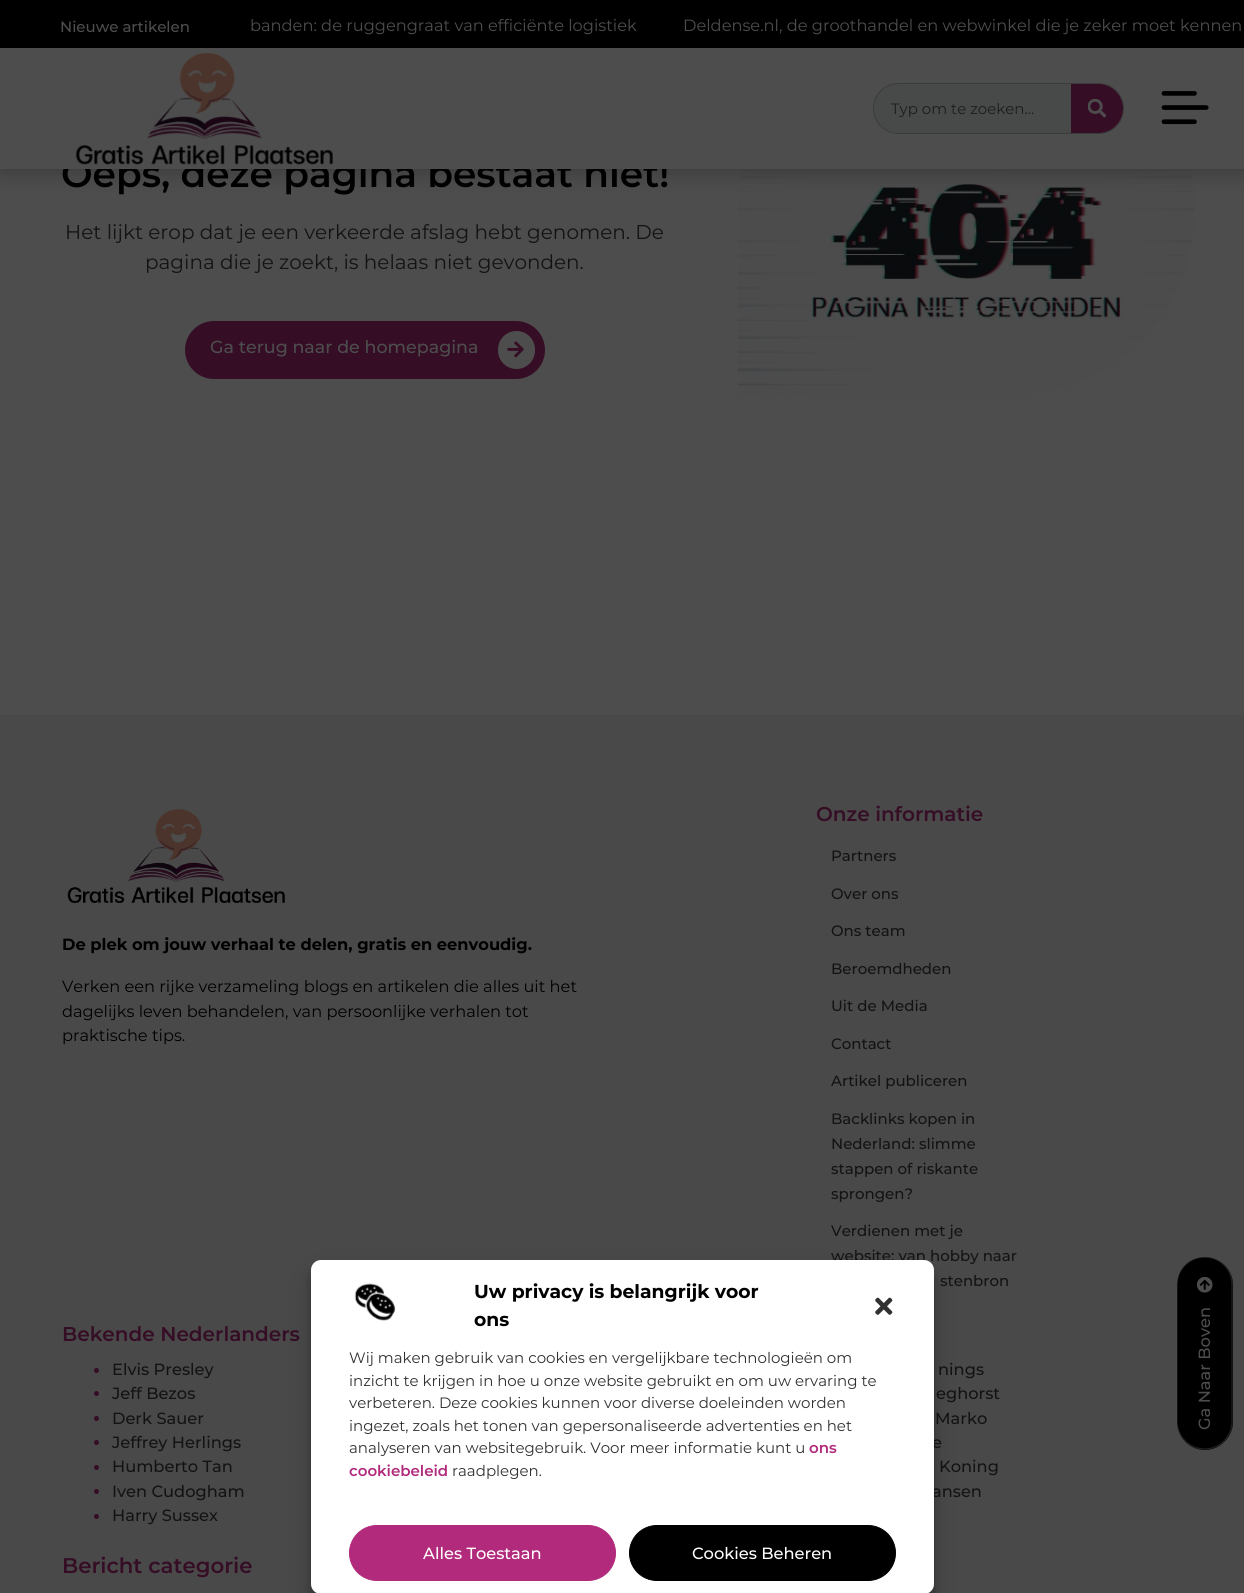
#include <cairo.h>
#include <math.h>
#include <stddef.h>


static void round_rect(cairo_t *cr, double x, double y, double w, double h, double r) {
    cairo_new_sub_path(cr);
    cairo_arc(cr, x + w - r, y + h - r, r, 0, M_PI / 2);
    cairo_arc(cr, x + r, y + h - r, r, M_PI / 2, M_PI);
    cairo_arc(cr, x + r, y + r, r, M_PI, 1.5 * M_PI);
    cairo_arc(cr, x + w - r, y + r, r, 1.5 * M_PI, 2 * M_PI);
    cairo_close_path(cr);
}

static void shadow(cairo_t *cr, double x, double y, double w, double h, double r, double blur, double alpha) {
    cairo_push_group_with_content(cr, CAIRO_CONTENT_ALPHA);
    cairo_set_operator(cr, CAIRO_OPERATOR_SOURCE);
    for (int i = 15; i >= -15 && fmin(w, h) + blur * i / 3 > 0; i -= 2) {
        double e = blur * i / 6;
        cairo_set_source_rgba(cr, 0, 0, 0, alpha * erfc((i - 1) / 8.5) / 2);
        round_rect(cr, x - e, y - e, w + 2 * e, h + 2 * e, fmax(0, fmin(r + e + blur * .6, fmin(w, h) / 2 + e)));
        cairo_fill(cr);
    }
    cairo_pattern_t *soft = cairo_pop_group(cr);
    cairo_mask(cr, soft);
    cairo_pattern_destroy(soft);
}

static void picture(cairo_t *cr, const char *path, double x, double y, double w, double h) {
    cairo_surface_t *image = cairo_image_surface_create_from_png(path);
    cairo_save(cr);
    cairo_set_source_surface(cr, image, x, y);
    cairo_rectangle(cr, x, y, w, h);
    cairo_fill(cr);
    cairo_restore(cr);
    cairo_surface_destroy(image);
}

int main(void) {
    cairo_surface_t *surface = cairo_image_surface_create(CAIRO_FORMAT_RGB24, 1244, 1593);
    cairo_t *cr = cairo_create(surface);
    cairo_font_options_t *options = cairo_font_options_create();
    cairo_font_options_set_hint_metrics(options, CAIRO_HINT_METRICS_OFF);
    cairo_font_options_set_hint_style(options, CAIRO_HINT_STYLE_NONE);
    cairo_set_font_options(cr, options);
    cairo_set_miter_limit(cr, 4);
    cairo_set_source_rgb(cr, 0.302, 0.302, 0.302);
    cairo_paint(cr);
    picture(cr, "img6.png", 737, 169, 458, 225);
    cairo_set_source_rgb(cr, 0, 0, 0);
    shadow(cr, 0, 0, 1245, 169, 0, 12.5, 0.32);
    cairo_select_font_face(cr, "Montserrat SemiBold", CAIRO_FONT_SLANT_NORMAL, CAIRO_FONT_WEIGHT_NORMAL);
    cairo_set_font_size(cr, 37.5);
    cairo_set_source_rgb(cr, 0, 0, 0);
    cairo_move_to(cr, 61, 187);
    cairo_show_text(cr, "Oeps, deze pagina bestaat niet!");
    cairo_set_source_rgb(cr, 0.302, 0.302, 0.302);
    cairo_rectangle(cr, 0, 48, 1244, 121);
    cairo_fill(cr);
    cairo_set_source_rgb(cr, 0, 0, 0);
    cairo_rectangle(cr, 0, 0, 1244, 48);
    cairo_fill(cr);
    cairo_select_font_face(cr, "Montserrat Medium", CAIRO_FONT_SLANT_NORMAL, CAIRO_FONT_WEIGHT_NORMAL);
    cairo_set_font_size(cr, 15);
    cairo_set_source_rgb(cr, 0.302, 0.302, 0.302);
    cairo_move_to(cr, 60, 32);
    cairo_show_text(cr, "Nieuwe artikelen");
    cairo_select_font_face(cr, "Montserrat", CAIRO_FONT_SLANT_NORMAL, CAIRO_FONT_WEIGHT_NORMAL);
    cairo_set_font_size(cr, 16.25);
    cairo_move_to(cr, 250, 31);
    cairo_show_text(cr, "banden: de ruggengraat van efficiënte logistiek");
    cairo_move_to(cr, 683, 31);
    cairo_show_text(cr, "Deldense.nl, de groothandel en webwinkel die je zeker moet kennen");
    picture(cr, "img1.png", 75, 52, 258, 113);
    cairo_set_source_rgb(cr, 0.282, 0.286, 0.286);
    round_rect(cr, 873, 83, 251, 51, 25.5);
    cairo_fill(cr);
    round_rect(cr, 873.5, 83.5, 250, 50, 25);
    cairo_set_source_rgba(cr, 0, 0, 0, 0.19);
    cairo_set_line_width(cr, 1);
    cairo_stroke(cr);
    cairo_set_font_size(cr, 15);
    cairo_set_source_rgb(cr, 0.114, 0.114, 0.114);
    cairo_move_to(cr, 891, 114);
    cairo_show_text(cr, "Typ om te zoeken…");
    cairo_set_source_rgb(cr, 0.208, 0.051, 0.145);
    cairo_new_path(cr);
    cairo_move_to(cr, 1071, 84);
    cairo_line_to(cr, 1098.5, 84);
    cairo_curve_to(cr, 1112, 84, 1123, 95, 1123, 108.5);
    cairo_curve_to(cr, 1123, 122, 1112, 133, 1098.5, 133);
    cairo_line_to(cr, 1071, 133);
    cairo_close_path(cr);
    cairo_fill(cr);
    picture(cr, "img2.png", 1088, 99, 18, 19);
    picture(cr, "img3.png", 1161, 91, 48, 34);
    cairo_set_source_rgb(cr, 0.286, 0.286, 0.286);
    cairo_rectangle(cr, 0, 715, 1244, 878);
    cairo_fill(cr);
    cairo_set_source_rgb(cr, 0, 0, 0);
    cairo_new_path(cr);
    cairo_move_to(cr, 1177, 1422);
    cairo_line_to(cr, 1177, 1285);
    cairo_curve_to(cr, 1177, 1269, 1189, 1257, 1205, 1257);
    cairo_curve_to(cr, 1220, 1257, 1233, 1269, 1233, 1285);
    cairo_line_to(cr, 1233, 1422);
    cairo_curve_to(cr, 1233, 1437, 1220, 1450, 1205, 1450);
    cairo_curve_to(cr, 1189, 1450, 1177, 1437, 1177, 1422);
    cairo_close_path(cr);
    cairo_fill(cr);
    cairo_new_path(cr);
    cairo_move_to(cr, 1177, 1421.5);
    cairo_line_to(cr, 1177, 1284.5);
    cairo_curve_to(cr, 1177, 1269.5, 1189.5, 1257, 1204.5, 1257);
    cairo_curve_to(cr, 1220, 1257, 1232, 1269.5, 1232, 1284.5);
    cairo_line_to(cr, 1232, 1421.5);
    cairo_curve_to(cr, 1232, 1436.5, 1220, 1449, 1204.5, 1449);
    cairo_curve_to(cr, 1189.5, 1449, 1177, 1436.5, 1177, 1421.5);
    cairo_close_path(cr);
    cairo_set_source_rgba(cr, 0.302, 0.302, 0.302, 0.43);
    cairo_set_line_width(cr, 1.2);
    cairo_stroke(cr);
    picture(cr, "img4.png", 1196, 1276, 17, 17);
    cairo_select_font_face(cr, "Montserrat Medium", CAIRO_FONT_SLANT_NORMAL, CAIRO_FONT_WEIGHT_NORMAL);
    cairo_set_font_size(cr, 16.25);
    cairo_set_source_rgb(cr, 0.302, 0.302, 0.302);
    cairo_save(cr);
    cairo_translate(cr, 1210, 1430);
    cairo_rotate(cr, -90 * M_PI / 180);
    cairo_move_to(cr, 0, 0);
    cairo_show_text(cr, "Ga Naar Boven");
    cairo_restore(cr);
    cairo_select_font_face(cr, "Montserrat", CAIRO_FONT_SLANT_NORMAL, CAIRO_FONT_WEIGHT_NORMAL);
    cairo_set_font_size(cr, 20);
    cairo_set_source_rgb(cr, 0.078, 0.078, 0.078);
    cairo_move_to(cr, 65, 239);
    cairo_show_text(cr, "Het lijkt erop dat je een verkeerde afslag hebt genomen. De");
    cairo_move_to(cr, 145, 269);
    cairo_show_text(cr, "pagina die je zoekt, is helaas niet gevonden.");
    cairo_set_source_rgb(cr, 0.208, 0.051, 0.145);
    round_rect(cr, 185, 321, 360, 58, 29);
    cairo_fill(cr);
    cairo_select_font_face(cr, "Montserrat Medium", CAIRO_FONT_SLANT_NORMAL, CAIRO_FONT_WEIGHT_NORMAL);
    cairo_set_font_size(cr, 17.5);
    cairo_set_source_rgb(cr, 0.302, 0.302, 0.302);
    cairo_move_to(cr, 210, 353);
    cairo_show_text(cr, "Ga terug naar de homepagina");
    round_rect(cr, 498, 331, 37, 38, 18.5);
    cairo_fill(cr);
    picture(cr, "img5.png", 507, 341, 17, 17);
    picture(cr, "img7.png", 67, 809, 218, 94);
    cairo_select_font_face(cr, "Montserrat", CAIRO_FONT_SLANT_NORMAL, CAIRO_FONT_WEIGHT_BOLD);
    cairo_set_font_size(cr, 16.25);
    cairo_set_source_rgb(cr, 0, 0, 0);
    cairo_move_to(cr, 62, 950);
    cairo_show_text(cr, "De plek om jouw verhaal te delen, gratis en eenvoudig.");
    cairo_select_font_face(cr, "Montserrat", CAIRO_FONT_SLANT_NORMAL, CAIRO_FONT_WEIGHT_NORMAL);
    cairo_move_to(cr, 62, 992);
    cairo_show_text(cr, "Verken een rijke verzameling blogs en artikelen die alles uit het");
    cairo_move_to(cr, 62, 1017);
    cairo_show_text(cr, "dagelijks leven behandelen, van persoonlijke verhalen tot");
    cairo_move_to(cr, 62, 1041);
    cairo_show_text(cr, "praktische tips.");
    cairo_select_font_face(cr, "Montserrat SemiBold", CAIRO_FONT_SLANT_NORMAL, CAIRO_FONT_WEIGHT_NORMAL);
    cairo_set_font_size(cr, 20);
    cairo_set_source_rgb(cr, 0.208, 0.051, 0.145);
    cairo_move_to(cr, 816, 821);
    cairo_show_text(cr, "Onze informatie");
    cairo_select_font_face(cr, "Montserrat Medium", CAIRO_FONT_SLANT_NORMAL, CAIRO_FONT_WEIGHT_NORMAL);
    cairo_set_font_size(cr, 15);
    cairo_set_source_rgb(cr, 0.078, 0.078, 0.078);
    cairo_move_to(cr, 831, 861);
    cairo_show_text(cr, "Partners");
    cairo_move_to(cr, 831, 899);
    cairo_show_text(cr, "Over ons");
    cairo_move_to(cr, 831, 936);
    cairo_show_text(cr, "Ons team");
    cairo_move_to(cr, 831, 974);
    cairo_show_text(cr, "Beroemdheden");
    cairo_move_to(cr, 831, 1011);
    cairo_show_text(cr, "Uit de Media");
    cairo_move_to(cr, 831, 1049);
    cairo_show_text(cr, "Contact");
    cairo_move_to(cr, 831, 1086);
    cairo_show_text(cr, "Artikel publiceren");
    cairo_move_to(cr, 831, 1124);
    cairo_show_text(cr, "Backlinks kopen in");
    cairo_move_to(cr, 831, 1149);
    cairo_show_text(cr, "Nederland: slimme");
    cairo_move_to(cr, 831, 1174);
    cairo_show_text(cr, "stappen of riskante");
    cairo_move_to(cr, 831, 1199);
    cairo_show_text(cr, "sprongen?");
    cairo_move_to(cr, 831, 1236);
    cairo_show_text(cr, "Verdienen met je");
    cairo_move_to(cr, 831, 1261);
    cairo_show_text(cr, "website: van hobby naar");
    cairo_move_to(cr, 940, 1286);
    cairo_show_text(cr, "stenbron");
    cairo_select_font_face(cr, "Montserrat SemiBold", CAIRO_FONT_SLANT_NORMAL, CAIRO_FONT_WEIGHT_NORMAL);
    cairo_set_font_size(cr, 20);
    cairo_set_source_rgb(cr, 0.208, 0.051, 0.145);
    cairo_move_to(cr, 62, 1341);
    cairo_show_text(cr, "Bekende Nederlanders");
    cairo_new_path(cr);
    cairo_arc(cr, 96.5, 1370.5, 2.5, 0, 2 * M_PI);
    cairo_fill(cr);
    cairo_select_font_face(cr, "Montserrat Medium", CAIRO_FONT_SLANT_NORMAL, CAIRO_FONT_WEIGHT_NORMAL);
    cairo_set_font_size(cr, 16.25);
    cairo_set_source_rgb(cr, 0.078, 0.078, 0.078);
    cairo_move_to(cr, 112, 1375);
    cairo_show_text(cr, "Elvis Presley");
    cairo_move_to(cr, 938, 1375);
    cairo_show_text(cr, "nings");
    cairo_set_source_rgb(cr, 0.208, 0.051, 0.145);
    cairo_new_path(cr);
    cairo_arc(cr, 96.5, 1393.5, 2.5, 0, 2 * M_PI);
    cairo_fill(cr);
    cairo_set_source_rgb(cr, 0.078, 0.078, 0.078);
    cairo_move_to(cr, 112, 1399);
    cairo_show_text(cr, "Jeff Bezos");
    cairo_move_to(cr, 936, 1399);
    cairo_show_text(cr, "eghorst");
    cairo_set_source_rgb(cr, 0.208, 0.051, 0.145);
    cairo_new_path(cr);
    cairo_arc(cr, 96.5, 1418.5, 2.5, 0, 2 * M_PI);
    cairo_fill(cr);
    cairo_set_source_rgb(cr, 0.078, 0.078, 0.078);
    cairo_move_to(cr, 112, 1424);
    cairo_show_text(cr, "Derk Sauer");
    cairo_move_to(cr, 935, 1424);
    cairo_show_text(cr, "Marko");
    cairo_set_source_rgb(cr, 0.208, 0.051, 0.145);
    cairo_new_path(cr);
    cairo_arc(cr, 96.5, 1442.5, 2.5, 0, 2 * M_PI);
    cairo_fill(cr);
    cairo_set_source_rgb(cr, 0.078, 0.078, 0.078);
    cairo_move_to(cr, 112, 1448);
    cairo_show_text(cr, "Jeffrey Herlings");
    cairo_move_to(cr, 932, 1448);
    cairo_show_text(cr, "e");
    cairo_set_source_rgb(cr, 0.208, 0.051, 0.145);
    cairo_new_path(cr);
    cairo_arc(cr, 96.5, 1467.5, 2.5, 0, 2 * M_PI);
    cairo_fill(cr);
    cairo_set_source_rgb(cr, 0.078, 0.078, 0.078);
    cairo_move_to(cr, 112, 1472);
    cairo_show_text(cr, "Humberto Tan");
    cairo_move_to(cr, 939, 1472);
    cairo_show_text(cr, "Koning");
    cairo_set_source_rgb(cr, 0.208, 0.051, 0.145);
    cairo_new_path(cr);
    cairo_arc(cr, 96.5, 1491.5, 2.5, 0, 2 * M_PI);
    cairo_fill(cr);
    cairo_set_source_rgb(cr, 0.078, 0.078, 0.078);
    cairo_move_to(cr, 112, 1497);
    cairo_show_text(cr, "Iven Cudogham");
    cairo_move_to(cr, 932, 1497);
    cairo_show_text(cr, "ansen");
    cairo_set_source_rgb(cr, 0.208, 0.051, 0.145);
    cairo_new_path(cr);
    cairo_arc(cr, 96.5, 1516.5, 2.5, 0, 2 * M_PI);
    cairo_fill(cr);
    cairo_set_source_rgb(cr, 0.078, 0.078, 0.078);
    cairo_move_to(cr, 112, 1521);
    cairo_show_text(cr, "Harry Sussex");
    cairo_select_font_face(cr, "Montserrat SemiBold", CAIRO_FONT_SLANT_NORMAL, CAIRO_FONT_WEIGHT_NORMAL);
    cairo_set_font_size(cr, 21.25);
    cairo_set_source_rgb(cr, 0.208, 0.051, 0.145);
    cairo_move_to(cr, 62, 1573);
    cairo_show_text(cr, "Bericht categorie");
    cairo_set_source_rgb(cr, 0, 0, 0);
    shadow(cr, 311, 1268, 623, 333, 10, 4, 0.23);
    shadow(cr, 311, 1273, 623, 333, 10, 12.5, 0.19);
    cairo_set_source_rgb(cr, 1, 1, 1);
    round_rect(cr, 311, 1260, 623, 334, 10);
    cairo_fill(cr);
    picture(cr, "img8.png", 354, 1283, 42, 38);
    cairo_select_font_face(cr, "Montserrat", CAIRO_FONT_SLANT_NORMAL, CAIRO_FONT_WEIGHT_BOLD);
    cairo_set_font_size(cr, 18.75);
    cairo_set_source_rgb(cr, 0, 0, 0);
    cairo_move_to(cr, 474, 1298);
    cairo_show_text(cr, "Uw privacy is belangrijk voor");
    cairo_move_to(cr, 474, 1326);
    cairo_show_text(cr, "ons");
    picture(cr, "img9.png", 875, 1297, 18, 18);
    cairo_select_font_face(cr, "Montserrat", CAIRO_FONT_SLANT_NORMAL, CAIRO_FONT_WEIGHT_NORMAL);
    cairo_set_font_size(cr, 15);
    cairo_set_source_rgb(cr, 0.192, 0.192, 0.192);
    cairo_move_to(cr, 349, 1363);
    cairo_show_text(cr, "Wij maken gebruik van cookies en vergelijkbare technologieën om");
    cairo_move_to(cr, 349, 1386);
    cairo_show_text(cr, "inzicht te krijgen in hoe u onze website gebruikt en om uw ervaring te");
    cairo_move_to(cr, 349, 1408);
    cairo_show_text(cr, "verbeteren. Deze cookies kunnen voor diverse doeleinden worden");
    cairo_move_to(cr, 349, 1431);
    cairo_show_text(cr, "ingezet, zoals het tonen van gepersonaliseerde advertenties en het");
    cairo_move_to(cr, 349, 1453);
    cairo_show_text(cr, "analyseren van websitegebruik. Voor meer informatie kunt u");
    cairo_select_font_face(cr, "Montserrat SemiBold", CAIRO_FONT_SLANT_NORMAL, CAIRO_FONT_WEIGHT_NORMAL);
    cairo_set_source_rgb(cr, 0.694, 0.165, 0.482);
    cairo_move_to(cr, 809, 1453);
    cairo_show_text(cr, "ons");
    cairo_move_to(cr, 349, 1476);
    cairo_show_text(cr, "cookiebeleid");
    cairo_select_font_face(cr, "Montserrat", CAIRO_FONT_SLANT_NORMAL, CAIRO_FONT_WEIGHT_NORMAL);
    cairo_set_source_rgb(cr, 0.192, 0.192, 0.192);
    cairo_move_to(cr, 452, 1476);
    cairo_show_text(cr, "raadplegen.");
    cairo_set_source_rgb(cr, 0.694, 0.165, 0.482);
    round_rect(cr, 349.5, 1525.5, 266, 55, 27.5);
    cairo_fill_preserve(cr);
    cairo_set_line_width(cr, 1);
    cairo_stroke(cr);
    cairo_select_font_face(cr, "Montserrat Medium", CAIRO_FONT_SLANT_NORMAL, CAIRO_FONT_WEIGHT_NORMAL);
    cairo_set_font_size(cr, 16.25);
    cairo_set_source_rgb(cr, 1, 1, 1);
    cairo_move_to(cr, 423, 1559);
    cairo_show_text(cr, "Alles Toestaan");
    cairo_set_source_rgb(cr, 0, 0, 0);
    round_rect(cr, 629.5, 1525.5, 266, 55, 27.5);
    cairo_fill_preserve(cr);
    cairo_stroke(cr);
    cairo_set_source_rgb(cr, 1, 1, 1);
    cairo_move_to(cr, 692, 1559);
    cairo_show_text(cr, "Cookies Beheren");
    cairo_surface_write_to_png(surface, "page.png");
    cairo_font_options_destroy(options);
    cairo_destroy(cr);
    cairo_surface_destroy(surface);
    return 0;
}
